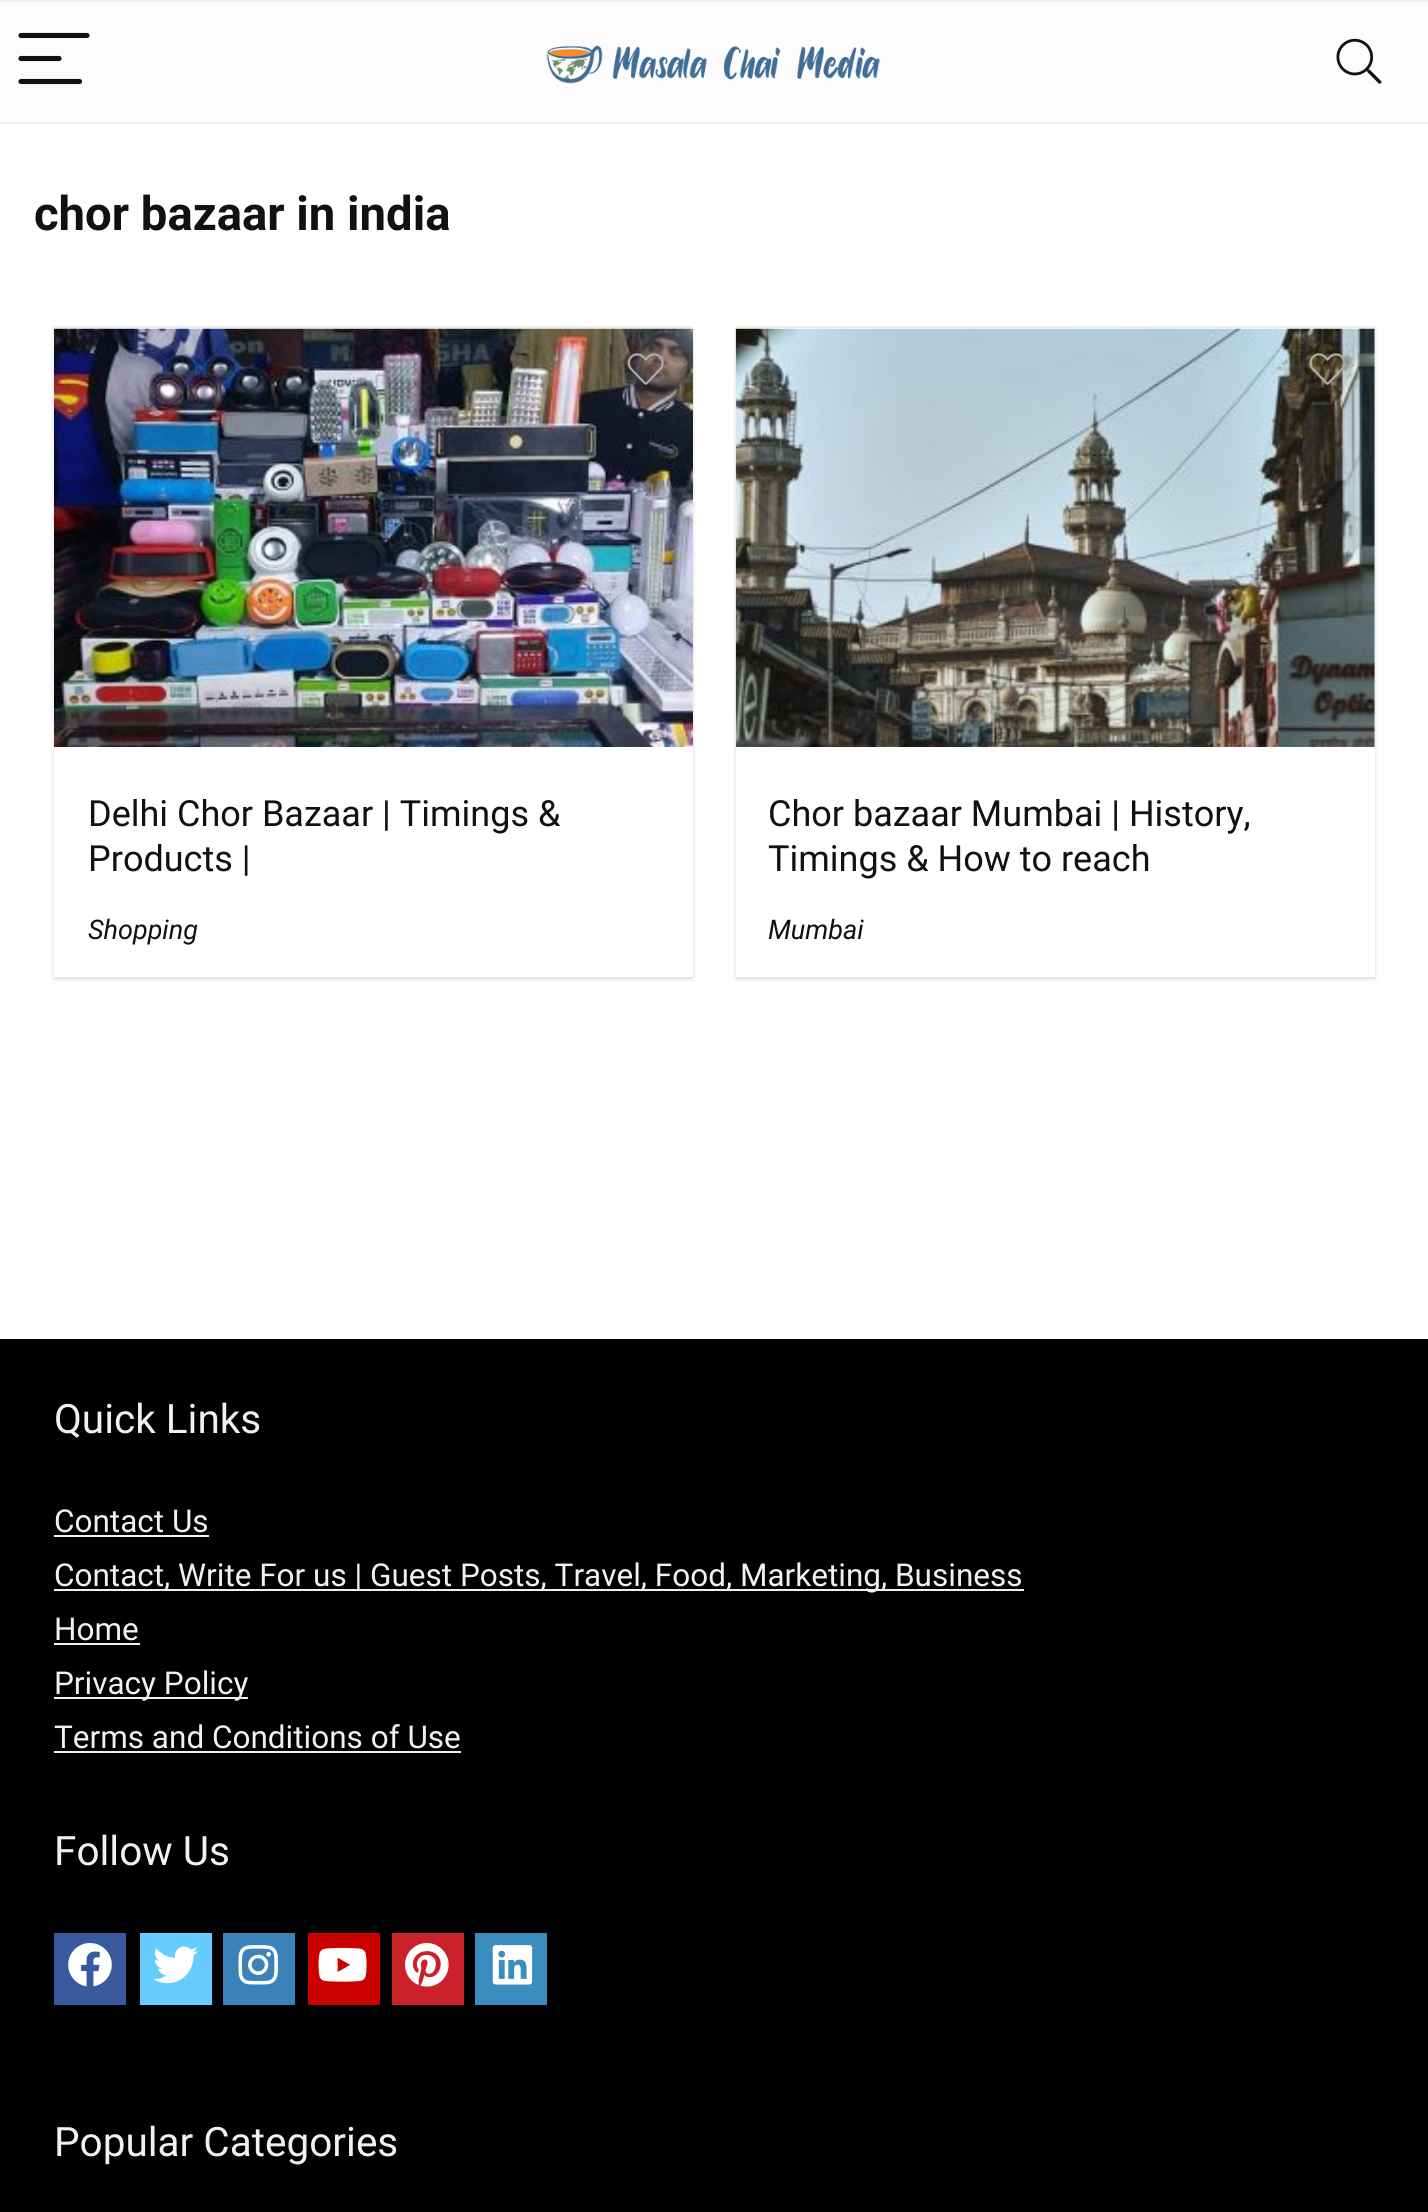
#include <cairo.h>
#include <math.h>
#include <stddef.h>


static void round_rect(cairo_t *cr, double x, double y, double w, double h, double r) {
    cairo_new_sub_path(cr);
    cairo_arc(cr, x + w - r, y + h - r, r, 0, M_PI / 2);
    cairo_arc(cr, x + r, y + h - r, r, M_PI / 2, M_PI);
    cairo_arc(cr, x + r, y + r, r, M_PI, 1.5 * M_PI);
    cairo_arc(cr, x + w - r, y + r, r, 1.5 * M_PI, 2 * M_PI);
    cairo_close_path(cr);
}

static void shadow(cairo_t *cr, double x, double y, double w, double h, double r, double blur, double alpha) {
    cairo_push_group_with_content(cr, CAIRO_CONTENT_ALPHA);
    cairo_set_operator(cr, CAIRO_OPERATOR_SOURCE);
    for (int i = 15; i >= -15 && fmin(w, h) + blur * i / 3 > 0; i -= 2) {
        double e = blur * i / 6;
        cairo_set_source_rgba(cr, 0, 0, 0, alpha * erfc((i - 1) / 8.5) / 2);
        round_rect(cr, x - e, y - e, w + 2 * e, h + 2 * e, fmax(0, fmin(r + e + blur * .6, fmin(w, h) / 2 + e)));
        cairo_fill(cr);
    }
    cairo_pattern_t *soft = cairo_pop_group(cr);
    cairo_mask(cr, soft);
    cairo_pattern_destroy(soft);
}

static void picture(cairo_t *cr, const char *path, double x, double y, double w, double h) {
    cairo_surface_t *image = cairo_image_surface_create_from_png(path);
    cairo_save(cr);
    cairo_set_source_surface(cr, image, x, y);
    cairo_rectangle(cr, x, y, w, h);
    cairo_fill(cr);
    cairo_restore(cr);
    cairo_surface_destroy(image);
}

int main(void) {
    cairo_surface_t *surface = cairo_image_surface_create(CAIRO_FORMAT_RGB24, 1428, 2212);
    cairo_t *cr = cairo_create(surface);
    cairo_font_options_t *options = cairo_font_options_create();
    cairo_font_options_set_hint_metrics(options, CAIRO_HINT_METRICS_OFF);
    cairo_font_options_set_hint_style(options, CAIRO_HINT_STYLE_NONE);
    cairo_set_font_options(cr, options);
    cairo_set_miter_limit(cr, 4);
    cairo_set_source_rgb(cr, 1, 1, 1);
    cairo_paint(cr);
    cairo_set_source_rgb(cr, 0.988, 0.988, 0.988);
    cairo_rectangle(cr, 0, 2, 1428, 120);
    cairo_fill(cr);
    cairo_set_source_rgb(cr, 0.933, 0.933, 0.933);
    cairo_rectangle(cr, 0, 0, 1428, 2);
    cairo_fill(cr);
    cairo_rectangle(cr, 0, 122, 1428, 2);
    cairo_fill(cr);
    cairo_new_path(cr);
    cairo_move_to(cr, 21, 35.5);
    cairo_line_to(cr, 87, 35.5);
    cairo_set_source_rgb(cr, 0.067, 0.067, 0.067);
    cairo_set_line_width(cr, 5.1);
    cairo_set_line_cap(cr, CAIRO_LINE_CAP_ROUND);
    cairo_stroke(cr);
    cairo_new_path(cr);
    cairo_move_to(cr, 21, 58.5);
    cairo_line_to(cr, 59, 58.5);
    cairo_stroke(cr);
    cairo_new_path(cr);
    cairo_move_to(cr, 21, 81.5);
    cairo_line_to(cr, 79.5, 81.5);
    cairo_stroke(cr);
    picture(cr, "img1.png", 546, 45, 334, 39);
    picture(cr, "img2.png", 1336, 38, 46, 46);
    cairo_select_font_face(cr, "Roboto", CAIRO_FONT_SLANT_NORMAL, CAIRO_FONT_WEIGHT_BOLD);
    cairo_set_font_size(cr, 47.25);
    cairo_move_to(cr, 34, 230);
    cairo_show_text(cr, "chor bazaar in india");
    cairo_set_source_rgb(cr, 0, 0, 0);
    shadow(cr, 54, 329, 639, 650, 0, 2, 0.15);
    cairo_set_source_rgb(cr, 1, 1, 1);
    cairo_rectangle(cr, 54, 328, 639, 649);
    cairo_fill(cr);
    cairo_set_source_rgb(cr, 0.937, 0.937, 0.937);
    cairo_rectangle(cr, 54, 326, 639, 2);
    cairo_fill(cr);
    picture(cr, "img3.png", 54, 328, 639, 419);
    picture(cr, "img4.png", 627, 353, 37, 32);
    cairo_select_font_face(cr, "Roboto", CAIRO_FONT_SLANT_NORMAL, CAIRO_FONT_WEIGHT_NORMAL);
    cairo_set_font_size(cr, 36);
    cairo_set_source_rgb(cr, 0.067, 0.067, 0.067);
    cairo_move_to(cr, 88, 826);
    cairo_show_text(cr, "Delhi Chor Bazaar | Timings &");
    cairo_move_to(cr, 88, 871);
    cairo_show_text(cr, "Products |");
    cairo_select_font_face(cr, "Roboto", CAIRO_FONT_SLANT_ITALIC, CAIRO_FONT_WEIGHT_NORMAL);
    cairo_set_font_size(cr, 27);
    cairo_move_to(cr, 88, 939);
    cairo_show_text(cr, "Shopping");
    cairo_set_source_rgb(cr, 0, 0, 0);
    shadow(cr, 736, 329, 639, 650, 0, 2, 0.15);
    cairo_set_source_rgb(cr, 1, 1, 1);
    cairo_rectangle(cr, 736, 328, 639, 649);
    cairo_fill(cr);
    cairo_set_source_rgb(cr, 0.937, 0.937, 0.937);
    cairo_rectangle(cr, 736, 326, 639, 2);
    cairo_fill(cr);
    picture(cr, "img5.png", 735, 328, 640, 419);
    picture(cr, "img6.png", 1309, 353, 37, 32);
    cairo_select_font_face(cr, "Roboto", CAIRO_FONT_SLANT_NORMAL, CAIRO_FONT_WEIGHT_NORMAL);
    cairo_set_font_size(cr, 36);
    cairo_set_source_rgb(cr, 0.067, 0.067, 0.067);
    cairo_move_to(cr, 768, 826);
    cairo_show_text(cr, "Chor bazaar Mumbai | History,");
    cairo_move_to(cr, 768, 871);
    cairo_show_text(cr, "Timings & How to reach");
    cairo_select_font_face(cr, "Roboto", CAIRO_FONT_SLANT_ITALIC, CAIRO_FONT_WEIGHT_NORMAL);
    cairo_set_font_size(cr, 27);
    cairo_move_to(cr, 768, 939);
    cairo_show_text(cr, "Mumbai");
    cairo_set_source_rgb(cr, 0, 0, 0);
    cairo_rectangle(cr, 0, 1339, 1428, 873);
    cairo_fill(cr);
    cairo_select_font_face(cr, "Roboto", CAIRO_FONT_SLANT_NORMAL, CAIRO_FONT_WEIGHT_NORMAL);
    cairo_set_font_size(cr, 40.5);
    cairo_set_source_rgb(cr, 0.945, 0.945, 0.945);
    cairo_move_to(cr, 54, 1433);
    cairo_show_text(cr, "Quick Links");
    cairo_set_font_size(cr, 31.5);
    cairo_move_to(cr, 54, 1532);
    cairo_show_text(cr, "Contact Us");
    cairo_rectangle(cr, 54, 1535, 155, 2);
    cairo_fill(cr);
    cairo_rectangle(cr, 54, 1589, 970, 2);
    cairo_fill(cr);
    cairo_move_to(cr, 54, 1586);
    cairo_show_text(cr, "Contact, Write For us | Guest Posts, Travel, Food, Marketing, Business");
    cairo_move_to(cr, 54, 1640);
    cairo_show_text(cr, "Home");
    cairo_rectangle(cr, 54, 1643, 86, 2);
    cairo_fill(cr);
    cairo_rectangle(cr, 54, 1697, 194, 2);
    cairo_fill(cr);
    cairo_move_to(cr, 54, 1694);
    cairo_show_text(cr, "Privacy Policy");
    cairo_move_to(cr, 54, 1748);
    cairo_show_text(cr, "Terms and Conditions of Use");
    cairo_rectangle(cr, 54, 1751, 407, 2);
    cairo_fill(cr);
    cairo_set_font_size(cr, 40.5);
    cairo_move_to(cr, 54, 1865);
    cairo_show_text(cr, "Follow Us");
    cairo_set_source_rgb(cr, 0.224, 0.349, 0.624);
    cairo_rectangle(cr, 54, 1933, 72, 72);
    cairo_fill(cr);
    picture(cr, "img7.png", 68, 1943, 44, 44);
    cairo_set_source_rgb(cr, 0.4, 0.8, 1);
    cairo_rectangle(cr, 140, 1933, 72, 72);
    cairo_fill(cr);
    picture(cr, "img8.png", 153, 1946, 45, 38);
    cairo_set_source_rgb(cr, 0.227, 0.51, 0.722);
    cairo_rectangle(cr, 223, 1933, 72, 72);
    cairo_fill(cr);
    picture(cr, "img9.png", 238, 1945, 40, 40);
    cairo_set_source_rgb(cr, 0.804, 0, 0);
    cairo_rectangle(cr, 308, 1933, 72, 72);
    cairo_fill(cr);
    picture(cr, "img10.png", 318, 1947, 49, 35);
    cairo_set_source_rgb(cr, 0.792, 0.129, 0.165);
    cairo_rectangle(cr, 392, 1933, 72, 72);
    cairo_fill(cr);
    picture(cr, "img11.png", 405, 1943, 44, 44);
    cairo_set_source_rgb(cr, 0.231, 0.553, 0.741);
    cairo_rectangle(cr, 475, 1933, 72, 72);
    cairo_fill(cr);
    picture(cr, "img12.png", 492, 1945, 41, 40);
    cairo_set_source_rgb(cr, 0.945, 0.945, 0.945);
    cairo_move_to(cr, 54, 2156);
    cairo_show_text(cr, "Popular Categories");
    cairo_surface_write_to_png(surface, "page.png");
    cairo_font_options_destroy(options);
    cairo_destroy(cr);
    cairo_surface_destroy(surface);
    return 0;
}
